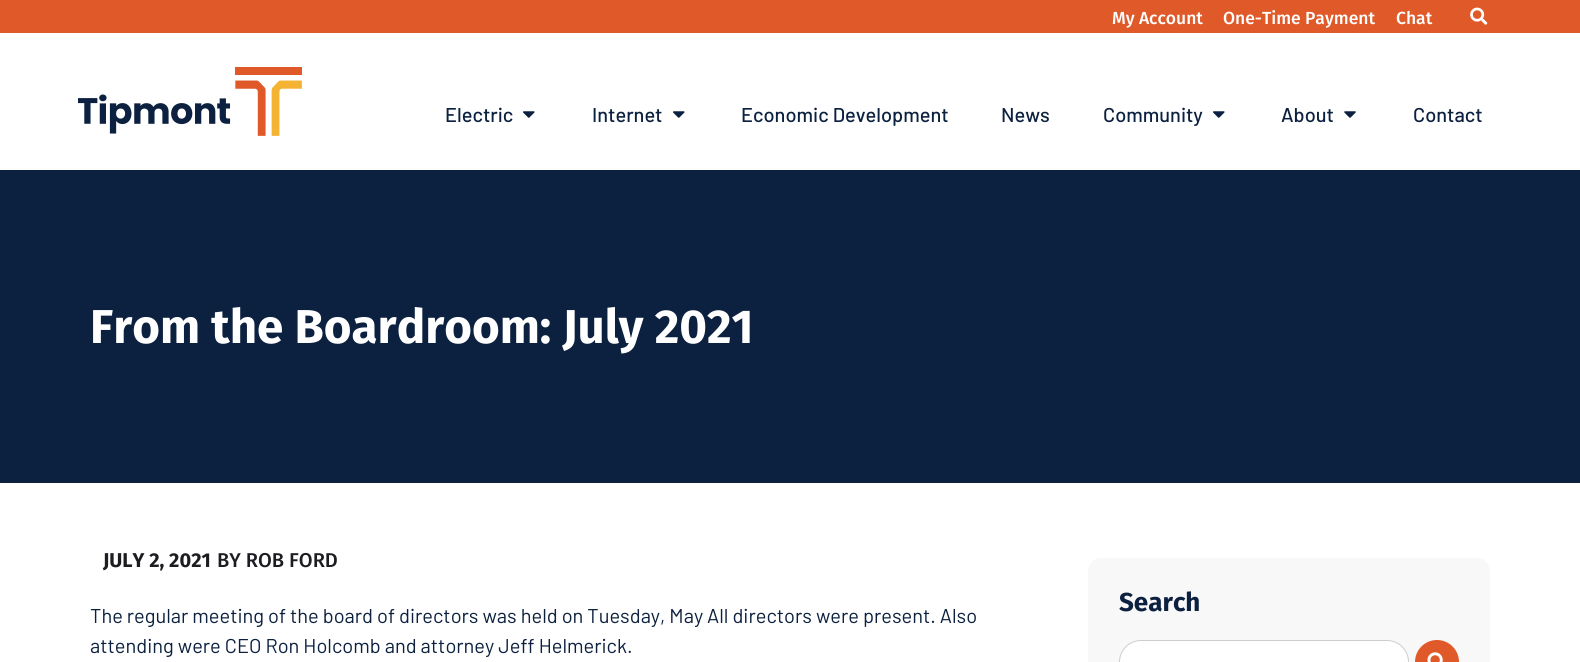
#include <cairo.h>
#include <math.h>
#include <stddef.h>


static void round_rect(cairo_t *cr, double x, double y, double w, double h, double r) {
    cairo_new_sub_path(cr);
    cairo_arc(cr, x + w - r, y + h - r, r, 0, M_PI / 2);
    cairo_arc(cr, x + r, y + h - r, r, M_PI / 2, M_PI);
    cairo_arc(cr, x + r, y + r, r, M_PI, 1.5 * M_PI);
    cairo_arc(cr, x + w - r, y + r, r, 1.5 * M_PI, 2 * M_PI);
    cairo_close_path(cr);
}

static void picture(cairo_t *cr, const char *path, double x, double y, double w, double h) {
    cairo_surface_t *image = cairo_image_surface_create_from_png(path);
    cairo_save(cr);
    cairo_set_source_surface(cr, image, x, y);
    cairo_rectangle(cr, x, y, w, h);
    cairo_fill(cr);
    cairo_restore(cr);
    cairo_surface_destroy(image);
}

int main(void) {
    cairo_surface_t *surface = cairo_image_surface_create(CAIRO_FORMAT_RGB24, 1580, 662);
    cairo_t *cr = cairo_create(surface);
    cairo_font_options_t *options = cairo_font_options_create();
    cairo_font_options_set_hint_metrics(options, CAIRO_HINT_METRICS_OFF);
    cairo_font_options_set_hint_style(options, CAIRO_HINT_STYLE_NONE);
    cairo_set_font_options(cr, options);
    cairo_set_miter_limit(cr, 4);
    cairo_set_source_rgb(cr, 1, 1, 1);
    cairo_paint(cr);
    cairo_set_source_rgb(cr, 0.878, 0.349, 0.161);
    cairo_rectangle(cr, 0, 0, 1580, 33);
    cairo_fill(cr);
    cairo_select_font_face(cr, "Fira Sans Medium", CAIRO_FONT_SLANT_NORMAL, CAIRO_FONT_WEIGHT_NORMAL);
    cairo_set_font_size(cr, 17.5);
    cairo_set_source_rgb(cr, 1, 1, 1);
    cairo_move_to(cr, 1112, 24);
    cairo_show_text(cr, "My Account");
    cairo_move_to(cr, 1223, 24);
    cairo_show_text(cr, "One-Time Payment");
    cairo_move_to(cr, 1396, 24);
    cairo_show_text(cr, "Chat");
    picture(cr, "img1.png", 1470, 7, 18, 18);
    picture(cr, "img2.png", 78, 67, 224, 69);
    cairo_select_font_face(cr, "Barlow Medium", CAIRO_FONT_SLANT_NORMAL, CAIRO_FONT_WEIGHT_NORMAL);
    cairo_set_font_size(cr, 20);
    cairo_set_source_rgb(cr, 0.047, 0.125, 0.247);
    cairo_move_to(cr, 445, 122);
    cairo_show_text(cr, "Electric");
    picture(cr, "img3.png", 523, 111, 12, 7);
    cairo_move_to(cr, 592, 122);
    cairo_show_text(cr, "Internet");
    picture(cr, "img3.png", 673, 111, 12, 7);
    cairo_move_to(cr, 741, 122);
    cairo_show_text(cr, "Economic Development");
    cairo_move_to(cr, 1001, 122);
    cairo_show_text(cr, "News");
    cairo_move_to(cr, 1103, 122);
    cairo_show_text(cr, "Community");
    picture(cr, "img3.png", 1213, 111, 12, 7);
    cairo_move_to(cr, 1281, 122);
    cairo_show_text(cr, "About");
    picture(cr, "img4.png", 1344, 111, 12, 7);
    cairo_move_to(cr, 1413, 122);
    cairo_show_text(cr, "Contact");
    cairo_rectangle(cr, 0, 170, 1580, 313);
    cairo_fill(cr);
    cairo_select_font_face(cr, "Fira Sans", CAIRO_FONT_SLANT_NORMAL, CAIRO_FONT_WEIGHT_BOLD);
    cairo_set_font_size(cr, 47.5);
    cairo_set_source_rgb(cr, 1, 1, 1);
    cairo_move_to(cr, 90, 343);
    cairo_show_text(cr, "From the Boardroom: July 2021");
    cairo_set_font_size(cr, 20);
    cairo_set_source_rgb(cr, 0.114, 0.11, 0.129);
    cairo_move_to(cr, 103, 567);
    cairo_show_text(cr, "JULY 2, 2021");
    cairo_select_font_face(cr, "Fira Sans Medium", CAIRO_FONT_SLANT_NORMAL, CAIRO_FONT_WEIGHT_NORMAL);
    cairo_move_to(cr, 217, 567);
    cairo_show_text(cr, "BY ROB FORD");
    cairo_select_font_face(cr, "Barlow", CAIRO_FONT_SLANT_NORMAL, CAIRO_FONT_WEIGHT_NORMAL);
    cairo_set_source_rgb(cr, 0.047, 0.125, 0.247);
    cairo_move_to(cr, 90, 623);
    cairo_show_text(cr, "The regular meeting of the board of directors was held on Tuesday, May All directors were present. Also");
    cairo_move_to(cr, 90, 653);
    cairo_show_text(cr, "attending were CEO Ron Holcomb and attorney Jeff Helmerick.");
    cairo_set_source_rgb(cr, 0.969, 0.969, 0.969);
    round_rect(cr, 1088, 558, 402, 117, 13);
    cairo_fill(cr);
    cairo_select_font_face(cr, "Fira Sans", CAIRO_FONT_SLANT_NORMAL, CAIRO_FONT_WEIGHT_BOLD);
    cairo_set_font_size(cr, 26);
    cairo_set_source_rgb(cr, 0.047, 0.125, 0.247);
    cairo_move_to(cr, 1119, 611);
    cairo_show_text(cr, "Search");
    cairo_set_source_rgb(cr, 1, 1, 1);
    round_rect(cr, 1119.5, 640.5, 289, 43, 21.5);
    cairo_fill_preserve(cr);
    cairo_set_source_rgb(cr, 0.804, 0.804, 0.804);
    cairo_set_line_width(cr, 1);
    cairo_stroke(cr);
    cairo_set_source_rgb(cr, 0.878, 0.349, 0.161);
    cairo_arc(cr, 1437, 662, 22, 0, 2 * M_PI);
    cairo_fill(cr);
    picture(cr, "img5.png", 1427, 652, 16, 10);
    cairo_surface_write_to_png(surface, "page.png");
    cairo_font_options_destroy(options);
    cairo_destroy(cr);
    cairo_surface_destroy(surface);
    return 0;
}
